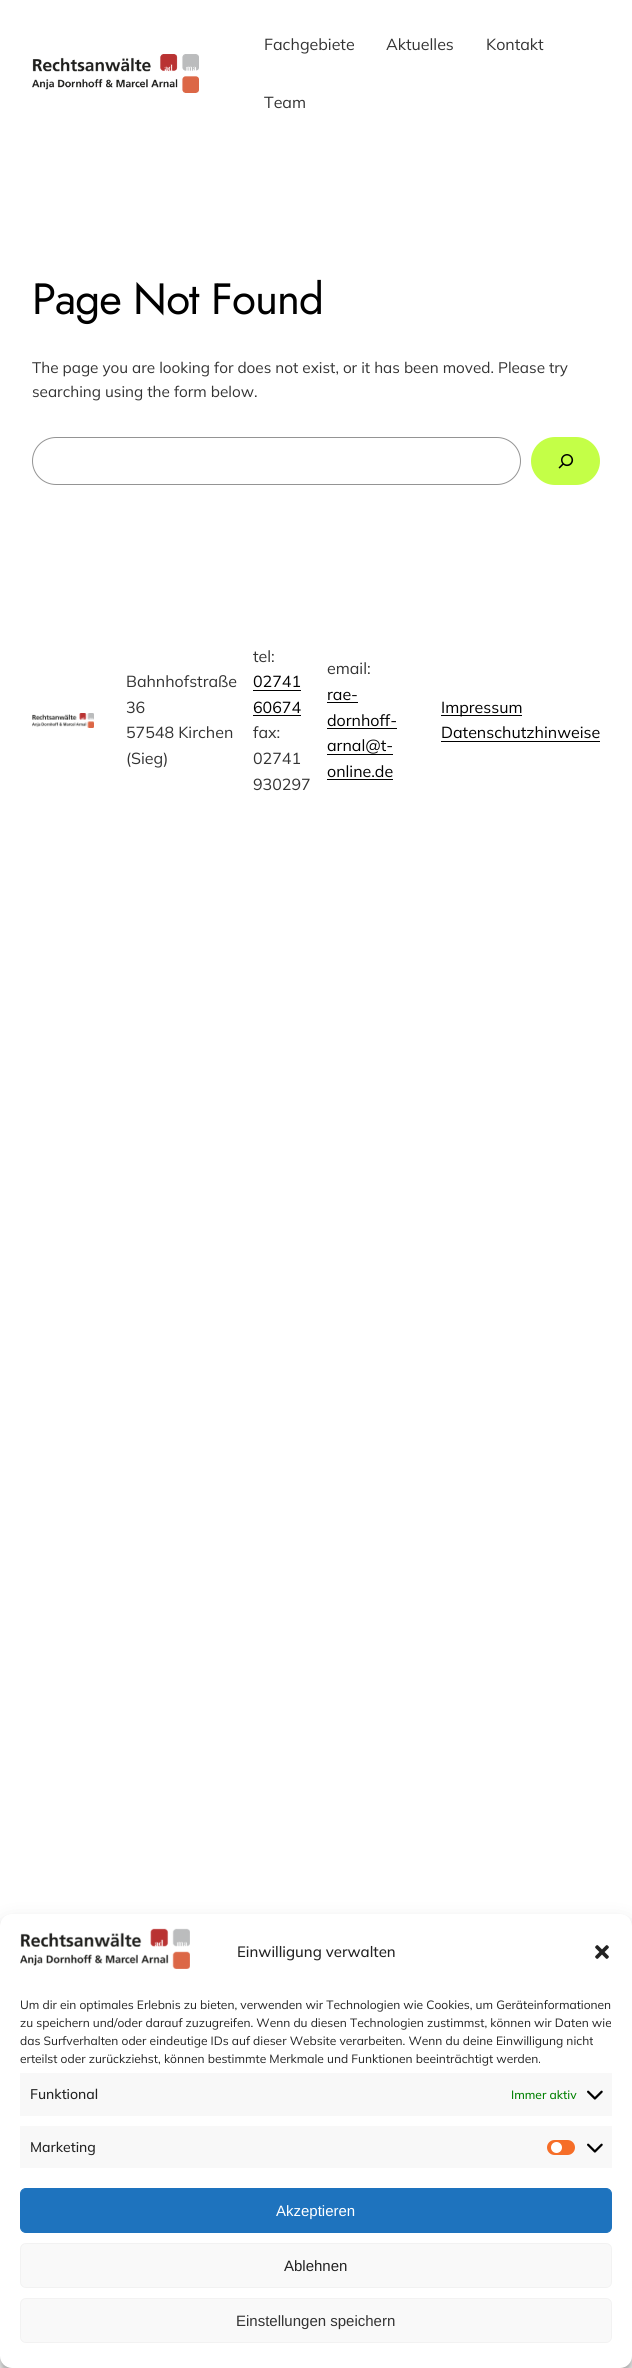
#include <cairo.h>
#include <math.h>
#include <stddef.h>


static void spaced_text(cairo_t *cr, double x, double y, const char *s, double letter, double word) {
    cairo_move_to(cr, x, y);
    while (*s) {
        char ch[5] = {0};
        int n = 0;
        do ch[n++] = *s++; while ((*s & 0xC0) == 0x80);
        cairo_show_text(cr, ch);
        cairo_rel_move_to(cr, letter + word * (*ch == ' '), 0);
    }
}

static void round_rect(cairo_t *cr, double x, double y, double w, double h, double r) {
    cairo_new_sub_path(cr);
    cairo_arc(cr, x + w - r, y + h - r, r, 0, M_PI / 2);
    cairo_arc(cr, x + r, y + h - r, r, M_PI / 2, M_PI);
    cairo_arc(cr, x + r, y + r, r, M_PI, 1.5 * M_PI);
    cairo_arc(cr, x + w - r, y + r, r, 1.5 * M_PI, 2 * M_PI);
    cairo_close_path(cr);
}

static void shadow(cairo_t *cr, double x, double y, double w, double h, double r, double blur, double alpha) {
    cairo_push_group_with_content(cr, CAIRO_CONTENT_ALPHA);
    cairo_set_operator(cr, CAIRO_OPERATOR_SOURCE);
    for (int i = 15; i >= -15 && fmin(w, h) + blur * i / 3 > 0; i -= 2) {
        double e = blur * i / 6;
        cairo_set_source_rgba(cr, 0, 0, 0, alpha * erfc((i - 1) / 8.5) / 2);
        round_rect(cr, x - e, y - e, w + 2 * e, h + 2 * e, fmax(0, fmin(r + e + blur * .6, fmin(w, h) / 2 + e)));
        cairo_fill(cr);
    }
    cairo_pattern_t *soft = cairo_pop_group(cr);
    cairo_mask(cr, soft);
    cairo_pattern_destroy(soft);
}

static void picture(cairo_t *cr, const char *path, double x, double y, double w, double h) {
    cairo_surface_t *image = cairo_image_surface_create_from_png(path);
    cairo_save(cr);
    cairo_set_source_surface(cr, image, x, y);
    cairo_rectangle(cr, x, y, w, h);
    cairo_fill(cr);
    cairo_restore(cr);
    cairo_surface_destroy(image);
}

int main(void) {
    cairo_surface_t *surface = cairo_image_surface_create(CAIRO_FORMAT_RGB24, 632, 2368);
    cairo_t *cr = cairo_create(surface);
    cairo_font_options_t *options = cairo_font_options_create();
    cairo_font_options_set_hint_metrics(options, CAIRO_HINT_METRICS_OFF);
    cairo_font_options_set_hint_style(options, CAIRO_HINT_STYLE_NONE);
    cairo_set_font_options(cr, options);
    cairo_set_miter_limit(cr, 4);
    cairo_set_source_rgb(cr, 1, 1, 1);
    cairo_paint(cr);
    picture(cr, "img1.png", 32, 54, 167, 39);
    cairo_select_font_face(cr, "Mulish", CAIRO_FONT_SLANT_NORMAL, CAIRO_FONT_WEIGHT_NORMAL);
    cairo_set_font_size(cr, 16);
    cairo_set_source_rgb(cr, 0.2, 0.2, 0.2);
    cairo_move_to(cr, 264, 50);
    cairo_show_text(cr, "Fachgebiete");
    cairo_move_to(cr, 386, 50);
    cairo_show_text(cr, "Aktuelles");
    cairo_move_to(cr, 486, 50);
    cairo_show_text(cr, "Kontakt");
    cairo_move_to(cr, 264, 108);
    cairo_show_text(cr, "Team");
    cairo_select_font_face(cr, "Jost", CAIRO_FONT_SLANT_NORMAL, CAIRO_FONT_WEIGHT_NORMAL);
    cairo_set_font_size(cr, 43.75);
    cairo_set_source_rgb(cr, 0, 0, 0);
    spaced_text(cr, 32, 314, "Page Not Found", -0.9, 0);
    cairo_select_font_face(cr, "Mulish", CAIRO_FONT_SLANT_NORMAL, CAIRO_FONT_WEIGHT_NORMAL);
    cairo_set_font_size(cr, 15.3);
    cairo_set_source_rgb(cr, 0.2, 0.2, 0.2);
    cairo_move_to(cr, 32, 373);
    cairo_show_text(cr, "The page you are looking for does not exist, or it has been moved. Please try");
    cairo_move_to(cr, 32, 397);
    cairo_show_text(cr, "searching using the form below.");
    round_rect(cr, 32.5, 437.5, 488, 47, 23.5);
    cairo_set_source_rgb(cr, 0.58, 0.58, 0.58);
    cairo_set_line_width(cr, 1);
    cairo_stroke(cr);
    cairo_set_source_rgb(cr, 0.769, 1, 0.278);
    round_rect(cr, 531, 437, 69, 48, 24);
    cairo_fill(cr);
    picture(cr, "img2.png", 558, 454, 16, 15);
    picture(cr, "img3.png", 32, 713, 62, 15);
    cairo_set_font_size(cr, 16);
    cairo_set_source_rgb(cr, 0.2, 0.2, 0.2);
    cairo_move_to(cr, 126, 687);
    cairo_show_text(cr, "Bahnhofstraße");
    cairo_move_to(cr, 126, 713);
    cairo_show_text(cr, "36");
    cairo_move_to(cr, 126, 738);
    cairo_show_text(cr, "57548 Kirchen");
    cairo_move_to(cr, 126, 764);
    cairo_show_text(cr, "(Sieg)");
    cairo_move_to(cr, 253, 662);
    cairo_show_text(cr, "tel:");
    cairo_set_source_rgb(cr, 0, 0, 0);
    cairo_move_to(cr, 253, 687);
    cairo_show_text(cr, "02741");
    cairo_rectangle(cr, 253, 690, 48, 1);
    cairo_fill(cr);
    cairo_move_to(cr, 253, 713);
    cairo_show_text(cr, "60674");
    cairo_rectangle(cr, 253, 715, 48, 1);
    cairo_fill(cr);
    cairo_set_source_rgb(cr, 0.2, 0.2, 0.2);
    cairo_move_to(cr, 253, 738);
    cairo_show_text(cr, "fax:");
    cairo_move_to(cr, 253, 764);
    cairo_show_text(cr, "02741");
    cairo_move_to(cr, 253, 790);
    cairo_show_text(cr, "930297");
    cairo_move_to(cr, 327, 674);
    cairo_show_text(cr, "email:");
    cairo_set_source_rgb(cr, 0, 0, 0);
    cairo_move_to(cr, 327, 700);
    cairo_show_text(cr, "rae-");
    cairo_rectangle(cr, 327, 702, 31, 1);
    cairo_fill(cr);
    cairo_move_to(cr, 327, 726);
    cairo_show_text(cr, "dornhoff-");
    cairo_rectangle(cr, 327, 728, 70, 1);
    cairo_fill(cr);
    cairo_move_to(cr, 327, 751);
    cairo_show_text(cr, "arnal@t-");
    cairo_rectangle(cr, 327, 754, 66, 1);
    cairo_fill(cr);
    cairo_move_to(cr, 327, 777);
    cairo_show_text(cr, "online.de");
    cairo_rectangle(cr, 327, 779, 66, 1);
    cairo_fill(cr);
    cairo_rectangle(cr, 441, 715, 81, 1);
    cairo_fill(cr);
    cairo_move_to(cr, 441, 713);
    cairo_show_text(cr, "Impressum");
    cairo_move_to(cr, 441, 738);
    cairo_show_text(cr, "Datenschutzhinweise");
    cairo_rectangle(cr, 441, 741, 159, 1);
    cairo_fill(cr);
    cairo_set_source_rgb(cr, 0, 0, 0);
    shadow(cr, 0, 1920, 632, 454, 12, 3, 0.23);
    shadow(cr, 0, 1924, 632, 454, 12, 10, 0.19);
    cairo_set_source_rgb(cr, 1, 1, 1);
    round_rect(cr, 0, 1914, 632, 454, 12);
    cairo_fill(cr);
    picture(cr, "img4.png", 20, 1928, 170, 41);
    cairo_select_font_face(cr, "Mulish Medium", CAIRO_FONT_SLANT_NORMAL, CAIRO_FONT_WEIGHT_NORMAL);
    cairo_set_font_size(cr, 15);
    cairo_set_source_rgb(cr, 0.133, 0.133, 0.133);
    cairo_move_to(cr, 237, 1957);
    cairo_show_text(cr, "Einwilligung verwalten");
    picture(cr, "img5.png", 595, 1945, 14, 14);
    cairo_select_font_face(cr, "Mulish", CAIRO_FONT_SLANT_NORMAL, CAIRO_FONT_WEIGHT_NORMAL);
    cairo_set_font_size(cr, 12);
    cairo_move_to(cr, 20, 2009);
    cairo_show_text(cr, "Um dir ein optimales Erlebnis zu bieten, verwenden wir Technologien wie Cookies, um Geräteinformationen");
    cairo_move_to(cr, 20, 2027);
    cairo_show_text(cr, "zu speichern und/oder darauf zuzugreifen. Wenn du diesen Technologien zustimmst, können wir Daten wie");
    cairo_move_to(cr, 20, 2045);
    cairo_show_text(cr, "das Surfverhalten oder eindeutige IDs auf dieser Website verarbeiten. Wenn du deine Einwilligung nicht");
    cairo_move_to(cr, 20, 2063);
    cairo_show_text(cr, "erteilst oder zurückziehst, können bestimmte Merkmale und Funktionen beeinträchtigt werden.");
    cairo_set_source_rgb(cr, 0.969, 0.969, 0.969);
    cairo_rectangle(cr, 20, 2073, 592, 43);
    cairo_fill(cr);
    cairo_select_font_face(cr, "Mulish Medium", CAIRO_FONT_SLANT_NORMAL, CAIRO_FONT_WEIGHT_NORMAL);
    cairo_set_font_size(cr, 14);
    cairo_set_source_rgb(cr, 0.133, 0.133, 0.133);
    cairo_move_to(cr, 30, 2099);
    cairo_show_text(cr, "Funktional");
    cairo_set_font_size(cr, 12);
    cairo_set_source_rgb(cr, 0, 0.502, 0);
    cairo_move_to(cr, 511, 2099);
    cairo_show_text(cr, "Immer aktiv");
    picture(cr, "img6.png", 587, 2090, 16, 10);
    cairo_set_source_rgb(cr, 0.969, 0.969, 0.969);
    cairo_rectangle(cr, 20, 2126, 592, 42);
    cairo_fill(cr);
    cairo_set_font_size(cr, 14);
    cairo_set_source_rgb(cr, 0.133, 0.133, 0.133);
    cairo_move_to(cr, 30, 2152);
    cairo_show_text(cr, "Marketing");
    cairo_set_source_rgb(cr, 0.961, 0.431, 0.157);
    round_rect(cr, 547, 2140, 28, 15, 7.5);
    cairo_fill(cr);
    cairo_set_source_rgb(cr, 1, 1, 1);
    cairo_arc(cr, 556.5, 2147.5, 5.5, 0, 2 * M_PI);
    cairo_fill(cr);
    picture(cr, "img6.png", 587, 2143, 16, 10);
    cairo_set_source_rgb(cr, 0.118, 0.451, 0.745);
    round_rect(cr, 20.5, 2188.5, 591, 44, 5.5);
    cairo_fill_preserve(cr);
    cairo_stroke(cr);
    cairo_select_font_face(cr, "Liberation Sans", CAIRO_FONT_SLANT_NORMAL, CAIRO_FONT_WEIGHT_NORMAL);
    cairo_set_font_size(cr, 15);
    cairo_set_source_rgb(cr, 1, 1, 1);
    cairo_move_to(cr, 276, 2216);
    cairo_show_text(cr, "Akzeptieren");
    cairo_set_source_rgb(cr, 0.976, 0.976, 0.976);
    round_rect(cr, 20.5, 2243.5, 591, 44, 5.5);
    cairo_fill_preserve(cr);
    cairo_set_source_rgb(cr, 0.949, 0.949, 0.949);
    cairo_stroke(cr);
    cairo_set_source_rgb(cr, 0.133, 0.133, 0.133);
    cairo_move_to(cr, 284, 2271);
    cairo_show_text(cr, "Ablehnen");
    cairo_set_source_rgb(cr, 0.976, 0.976, 0.976);
    round_rect(cr, 20.5, 2298.5, 591, 44, 5.5);
    cairo_fill_preserve(cr);
    cairo_set_source_rgb(cr, 0.949, 0.949, 0.949);
    cairo_stroke(cr);
    cairo_set_source_rgb(cr, 0.2, 0.2, 0.2);
    cairo_move_to(cr, 236, 2326);
    cairo_show_text(cr, "Einstellungen speichern");
    cairo_surface_write_to_png(surface, "page.png");
    cairo_font_options_destroy(options);
    cairo_destroy(cr);
    cairo_surface_destroy(surface);
    return 0;
}
